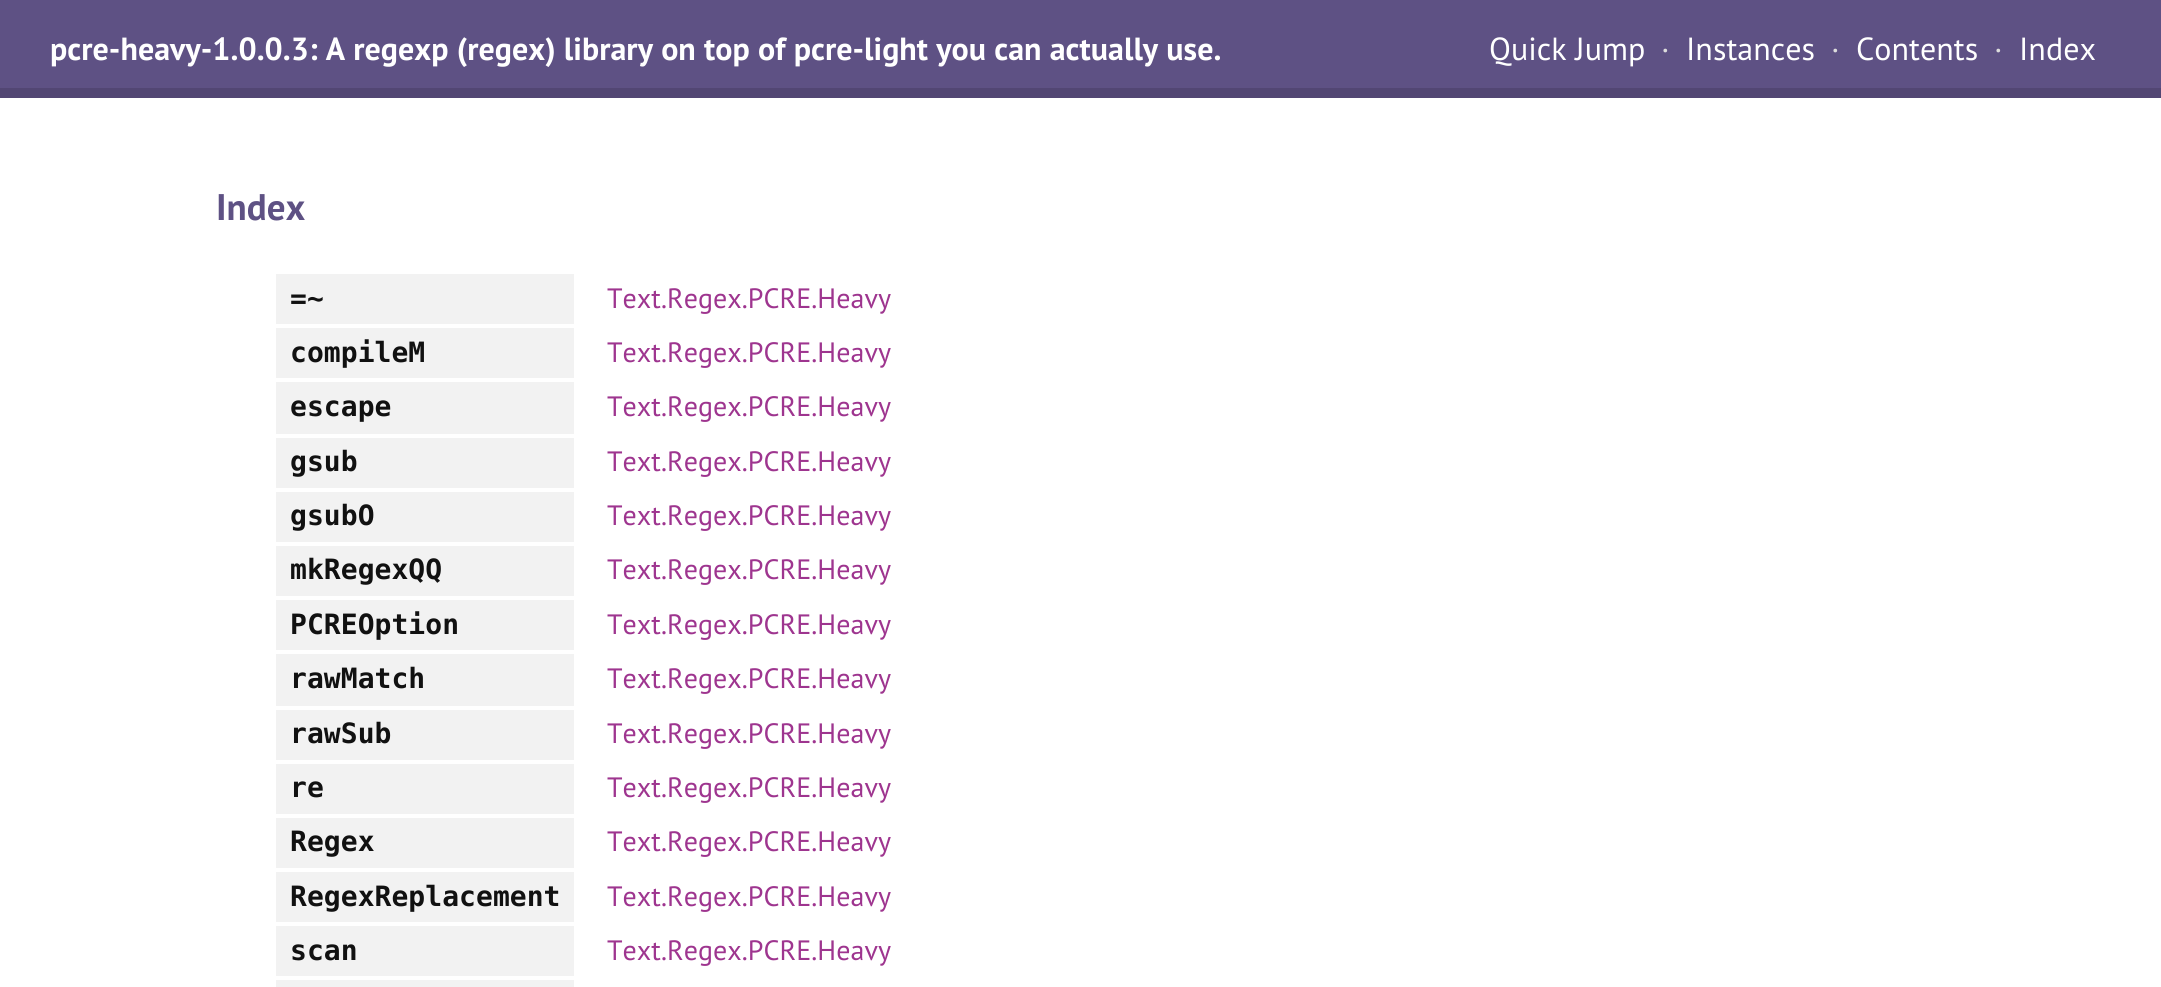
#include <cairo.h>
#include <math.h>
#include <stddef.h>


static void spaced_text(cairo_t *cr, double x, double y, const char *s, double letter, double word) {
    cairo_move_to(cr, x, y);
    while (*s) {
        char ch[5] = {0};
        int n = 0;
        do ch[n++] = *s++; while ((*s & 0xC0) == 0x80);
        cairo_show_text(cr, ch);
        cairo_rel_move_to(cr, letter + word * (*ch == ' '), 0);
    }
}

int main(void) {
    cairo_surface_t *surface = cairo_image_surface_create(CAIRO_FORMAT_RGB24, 2161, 987);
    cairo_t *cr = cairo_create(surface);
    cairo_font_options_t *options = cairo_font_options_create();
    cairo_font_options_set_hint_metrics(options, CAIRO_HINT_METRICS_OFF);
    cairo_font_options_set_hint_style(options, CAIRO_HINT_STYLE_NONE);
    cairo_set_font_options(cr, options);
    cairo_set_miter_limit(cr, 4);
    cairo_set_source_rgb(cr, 1, 1, 1);
    cairo_paint(cr);
    cairo_set_source_rgb(cr, 0.369, 0.318, 0.518);
    cairo_rectangle(cr, 0, 0, 2161, 88);
    cairo_fill(cr);
    cairo_set_source_rgb(cr, 0.322, 0.275, 0.451);
    cairo_rectangle(cr, 0, 88, 2161, 10);
    cairo_fill(cr);
    cairo_select_font_face(cr, "PT Sans", CAIRO_FONT_SLANT_NORMAL, CAIRO_FONT_WEIGHT_BOLD);
    cairo_set_font_size(cr, 32);
    cairo_set_source_rgb(cr, 1, 1, 1);
    spaced_text(cr, 50, 60, "pcre-heavy-1.0.0.3: A regexp (regex) library on top of pcre-light you can actually use.", 0.05, 0);
    cairo_select_font_face(cr, "PT Sans", CAIRO_FONT_SLANT_NORMAL, CAIRO_FONT_WEIGHT_NORMAL);
    spaced_text(cr, 1489, 60, "Quick Jump", 0.05, 0);
    cairo_set_source_rgb(cr, 0.867, 0.867, 0.867);
    spaced_text(cr, 1661, 60, "·", 0.05, 0);
    cairo_set_source_rgb(cr, 1, 1, 1);
    spaced_text(cr, 1686, 60, "Instances", 0.05, 0);
    cairo_set_source_rgb(cr, 0.867, 0.867, 0.867);
    spaced_text(cr, 1831, 60, "·", 0.05, 0);
    cairo_set_source_rgb(cr, 1, 1, 1);
    spaced_text(cr, 1856, 60, "Contents", 0.05, 0);
    cairo_set_source_rgb(cr, 0.867, 0.867, 0.867);
    spaced_text(cr, 1994, 60, "·", 0.05, 0);
    cairo_set_source_rgb(cr, 1, 1, 1);
    spaced_text(cr, 2019, 60, "Index", 0.05, 0);
    cairo_select_font_face(cr, "PT Sans", CAIRO_FONT_SLANT_NORMAL, CAIRO_FONT_WEIGHT_BOLD);
    cairo_set_font_size(cr, 37);
    cairo_set_source_rgb(cr, 0.369, 0.318, 0.518);
    spaced_text(cr, 216, 220, "Index", 0.05, 0);
    cairo_set_source_rgb(cr, 0.949, 0.949, 0.949);
    cairo_rectangle(cr, 276, 274, 298, 50);
    cairo_fill(cr);
    cairo_select_font_face(cr, "DejaVu Sans Mono", CAIRO_FONT_SLANT_NORMAL, CAIRO_FONT_WEIGHT_BOLD);
    cairo_set_font_size(cr, 28);
    cairo_set_source_rgb(cr, 0.067, 0.067, 0.067);
    spaced_text(cr, 290, 308, "=~", 0.05, 0);
    cairo_select_font_face(cr, "PT Sans", CAIRO_FONT_SLANT_NORMAL, CAIRO_FONT_WEIGHT_NORMAL);
    cairo_set_source_rgb(cr, 0.62, 0.208, 0.561);
    spaced_text(cr, 607, 308, "Text.Regex.PCRE.Heavy", 0.05, 0);
    cairo_set_source_rgb(cr, 0.949, 0.949, 0.949);
    cairo_rectangle(cr, 276, 328, 298, 50);
    cairo_fill(cr);
    cairo_select_font_face(cr, "DejaVu Sans Mono", CAIRO_FONT_SLANT_NORMAL, CAIRO_FONT_WEIGHT_BOLD);
    cairo_set_source_rgb(cr, 0.067, 0.067, 0.067);
    spaced_text(cr, 290, 362, "compileM", 0.05, 0);
    cairo_select_font_face(cr, "PT Sans", CAIRO_FONT_SLANT_NORMAL, CAIRO_FONT_WEIGHT_NORMAL);
    cairo_set_source_rgb(cr, 0.62, 0.208, 0.561);
    spaced_text(cr, 607, 362, "Text.Regex.PCRE.Heavy", 0.05, 0);
    cairo_set_source_rgb(cr, 0.949, 0.949, 0.949);
    cairo_rectangle(cr, 276, 382, 298, 52);
    cairo_fill(cr);
    cairo_select_font_face(cr, "DejaVu Sans Mono", CAIRO_FONT_SLANT_NORMAL, CAIRO_FONT_WEIGHT_BOLD);
    cairo_set_source_rgb(cr, 0.067, 0.067, 0.067);
    spaced_text(cr, 290, 416, "escape", 0.05, 0);
    cairo_select_font_face(cr, "PT Sans", CAIRO_FONT_SLANT_NORMAL, CAIRO_FONT_WEIGHT_NORMAL);
    cairo_set_source_rgb(cr, 0.62, 0.208, 0.561);
    spaced_text(cr, 607, 416, "Text.Regex.PCRE.Heavy", 0.05, 0);
    cairo_set_source_rgb(cr, 0.949, 0.949, 0.949);
    cairo_rectangle(cr, 276, 438, 298, 50);
    cairo_fill(cr);
    cairo_select_font_face(cr, "DejaVu Sans Mono", CAIRO_FONT_SLANT_NORMAL, CAIRO_FONT_WEIGHT_BOLD);
    cairo_set_source_rgb(cr, 0.067, 0.067, 0.067);
    spaced_text(cr, 290, 471, "gsub", 0.05, 0);
    cairo_select_font_face(cr, "PT Sans", CAIRO_FONT_SLANT_NORMAL, CAIRO_FONT_WEIGHT_NORMAL);
    cairo_set_source_rgb(cr, 0.62, 0.208, 0.561);
    spaced_text(cr, 607, 471, "Text.Regex.PCRE.Heavy", 0.05, 0);
    cairo_set_source_rgb(cr, 0.949, 0.949, 0.949);
    cairo_rectangle(cr, 276, 492, 298, 50);
    cairo_fill(cr);
    cairo_select_font_face(cr, "DejaVu Sans Mono", CAIRO_FONT_SLANT_NORMAL, CAIRO_FONT_WEIGHT_BOLD);
    cairo_set_source_rgb(cr, 0.067, 0.067, 0.067);
    spaced_text(cr, 290, 525, "gsubO", 0.05, 0);
    cairo_select_font_face(cr, "PT Sans", CAIRO_FONT_SLANT_NORMAL, CAIRO_FONT_WEIGHT_NORMAL);
    cairo_set_source_rgb(cr, 0.62, 0.208, 0.561);
    spaced_text(cr, 607, 525, "Text.Regex.PCRE.Heavy", 0.05, 0);
    cairo_set_source_rgb(cr, 0.949, 0.949, 0.949);
    cairo_rectangle(cr, 276, 546, 298, 50);
    cairo_fill(cr);
    cairo_select_font_face(cr, "DejaVu Sans Mono", CAIRO_FONT_SLANT_NORMAL, CAIRO_FONT_WEIGHT_BOLD);
    cairo_set_source_rgb(cr, 0.067, 0.067, 0.067);
    spaced_text(cr, 290, 579, "mkRegexQQ", 0.05, 0);
    cairo_select_font_face(cr, "PT Sans", CAIRO_FONT_SLANT_NORMAL, CAIRO_FONT_WEIGHT_NORMAL);
    cairo_set_source_rgb(cr, 0.62, 0.208, 0.561);
    spaced_text(cr, 607, 579, "Text.Regex.PCRE.Heavy", 0.05, 0);
    cairo_set_source_rgb(cr, 0.949, 0.949, 0.949);
    cairo_rectangle(cr, 276, 600, 298, 50);
    cairo_fill(cr);
    cairo_select_font_face(cr, "DejaVu Sans Mono", CAIRO_FONT_SLANT_NORMAL, CAIRO_FONT_WEIGHT_BOLD);
    cairo_set_source_rgb(cr, 0.067, 0.067, 0.067);
    spaced_text(cr, 290, 634, "PCREOption", 0.05, 0);
    cairo_select_font_face(cr, "PT Sans", CAIRO_FONT_SLANT_NORMAL, CAIRO_FONT_WEIGHT_NORMAL);
    cairo_set_source_rgb(cr, 0.62, 0.208, 0.561);
    spaced_text(cr, 607, 634, "Text.Regex.PCRE.Heavy", 0.05, 0);
    cairo_set_source_rgb(cr, 0.949, 0.949, 0.949);
    cairo_rectangle(cr, 276, 654, 298, 52);
    cairo_fill(cr);
    cairo_select_font_face(cr, "DejaVu Sans Mono", CAIRO_FONT_SLANT_NORMAL, CAIRO_FONT_WEIGHT_BOLD);
    cairo_set_source_rgb(cr, 0.067, 0.067, 0.067);
    spaced_text(cr, 290, 688, "rawMatch", 0.05, 0);
    cairo_select_font_face(cr, "PT Sans", CAIRO_FONT_SLANT_NORMAL, CAIRO_FONT_WEIGHT_NORMAL);
    cairo_set_source_rgb(cr, 0.62, 0.208, 0.561);
    spaced_text(cr, 607, 688, "Text.Regex.PCRE.Heavy", 0.05, 0);
    cairo_set_source_rgb(cr, 0.949, 0.949, 0.949);
    cairo_rectangle(cr, 276, 710, 298, 50);
    cairo_fill(cr);
    cairo_select_font_face(cr, "DejaVu Sans Mono", CAIRO_FONT_SLANT_NORMAL, CAIRO_FONT_WEIGHT_BOLD);
    cairo_set_source_rgb(cr, 0.067, 0.067, 0.067);
    spaced_text(cr, 290, 743, "rawSub", 0.05, 0);
    cairo_select_font_face(cr, "PT Sans", CAIRO_FONT_SLANT_NORMAL, CAIRO_FONT_WEIGHT_NORMAL);
    cairo_set_source_rgb(cr, 0.62, 0.208, 0.561);
    spaced_text(cr, 607, 743, "Text.Regex.PCRE.Heavy", 0.05, 0);
    cairo_set_source_rgb(cr, 0.949, 0.949, 0.949);
    cairo_rectangle(cr, 276, 764, 298, 50);
    cairo_fill(cr);
    cairo_select_font_face(cr, "DejaVu Sans Mono", CAIRO_FONT_SLANT_NORMAL, CAIRO_FONT_WEIGHT_BOLD);
    cairo_set_source_rgb(cr, 0.067, 0.067, 0.067);
    spaced_text(cr, 290, 797, "re", 0.05, 0);
    cairo_select_font_face(cr, "PT Sans", CAIRO_FONT_SLANT_NORMAL, CAIRO_FONT_WEIGHT_NORMAL);
    cairo_set_source_rgb(cr, 0.62, 0.208, 0.561);
    spaced_text(cr, 607, 797, "Text.Regex.PCRE.Heavy", 0.05, 0);
    cairo_set_source_rgb(cr, 0.949, 0.949, 0.949);
    cairo_rectangle(cr, 276, 818, 298, 50);
    cairo_fill(cr);
    cairo_select_font_face(cr, "DejaVu Sans Mono", CAIRO_FONT_SLANT_NORMAL, CAIRO_FONT_WEIGHT_BOLD);
    cairo_set_source_rgb(cr, 0.067, 0.067, 0.067);
    spaced_text(cr, 290, 851, "Regex", 0.05, 0);
    cairo_select_font_face(cr, "PT Sans", CAIRO_FONT_SLANT_NORMAL, CAIRO_FONT_WEIGHT_NORMAL);
    cairo_set_source_rgb(cr, 0.62, 0.208, 0.561);
    spaced_text(cr, 607, 851, "Text.Regex.PCRE.Heavy", 0.05, 0);
    cairo_set_source_rgb(cr, 0.949, 0.949, 0.949);
    cairo_rectangle(cr, 276, 872, 298, 50);
    cairo_fill(cr);
    cairo_select_font_face(cr, "DejaVu Sans Mono", CAIRO_FONT_SLANT_NORMAL, CAIRO_FONT_WEIGHT_BOLD);
    cairo_set_source_rgb(cr, 0.067, 0.067, 0.067);
    spaced_text(cr, 290, 906, "RegexReplacement", 0.05, 0);
    cairo_select_font_face(cr, "PT Sans", CAIRO_FONT_SLANT_NORMAL, CAIRO_FONT_WEIGHT_NORMAL);
    cairo_set_source_rgb(cr, 0.62, 0.208, 0.561);
    spaced_text(cr, 607, 906, "Text.Regex.PCRE.Heavy", 0.05, 0);
    cairo_set_source_rgb(cr, 0.949, 0.949, 0.949);
    cairo_rectangle(cr, 276, 926, 298, 50);
    cairo_fill(cr);
    cairo_select_font_face(cr, "DejaVu Sans Mono", CAIRO_FONT_SLANT_NORMAL, CAIRO_FONT_WEIGHT_BOLD);
    cairo_set_source_rgb(cr, 0.067, 0.067, 0.067);
    spaced_text(cr, 290, 960, "scan", 0.05, 0);
    cairo_select_font_face(cr, "PT Sans", CAIRO_FONT_SLANT_NORMAL, CAIRO_FONT_WEIGHT_NORMAL);
    cairo_set_source_rgb(cr, 0.62, 0.208, 0.561);
    spaced_text(cr, 607, 960, "Text.Regex.PCRE.Heavy", 0.05, 0);
    cairo_set_source_rgb(cr, 0.949, 0.949, 0.949);
    cairo_rectangle(cr, 276, 980, 298, 7);
    cairo_fill(cr);
    cairo_surface_write_to_png(surface, "page.png");
    cairo_font_options_destroy(options);
    cairo_destroy(cr);
    cairo_surface_destroy(surface);
    return 0;
}
